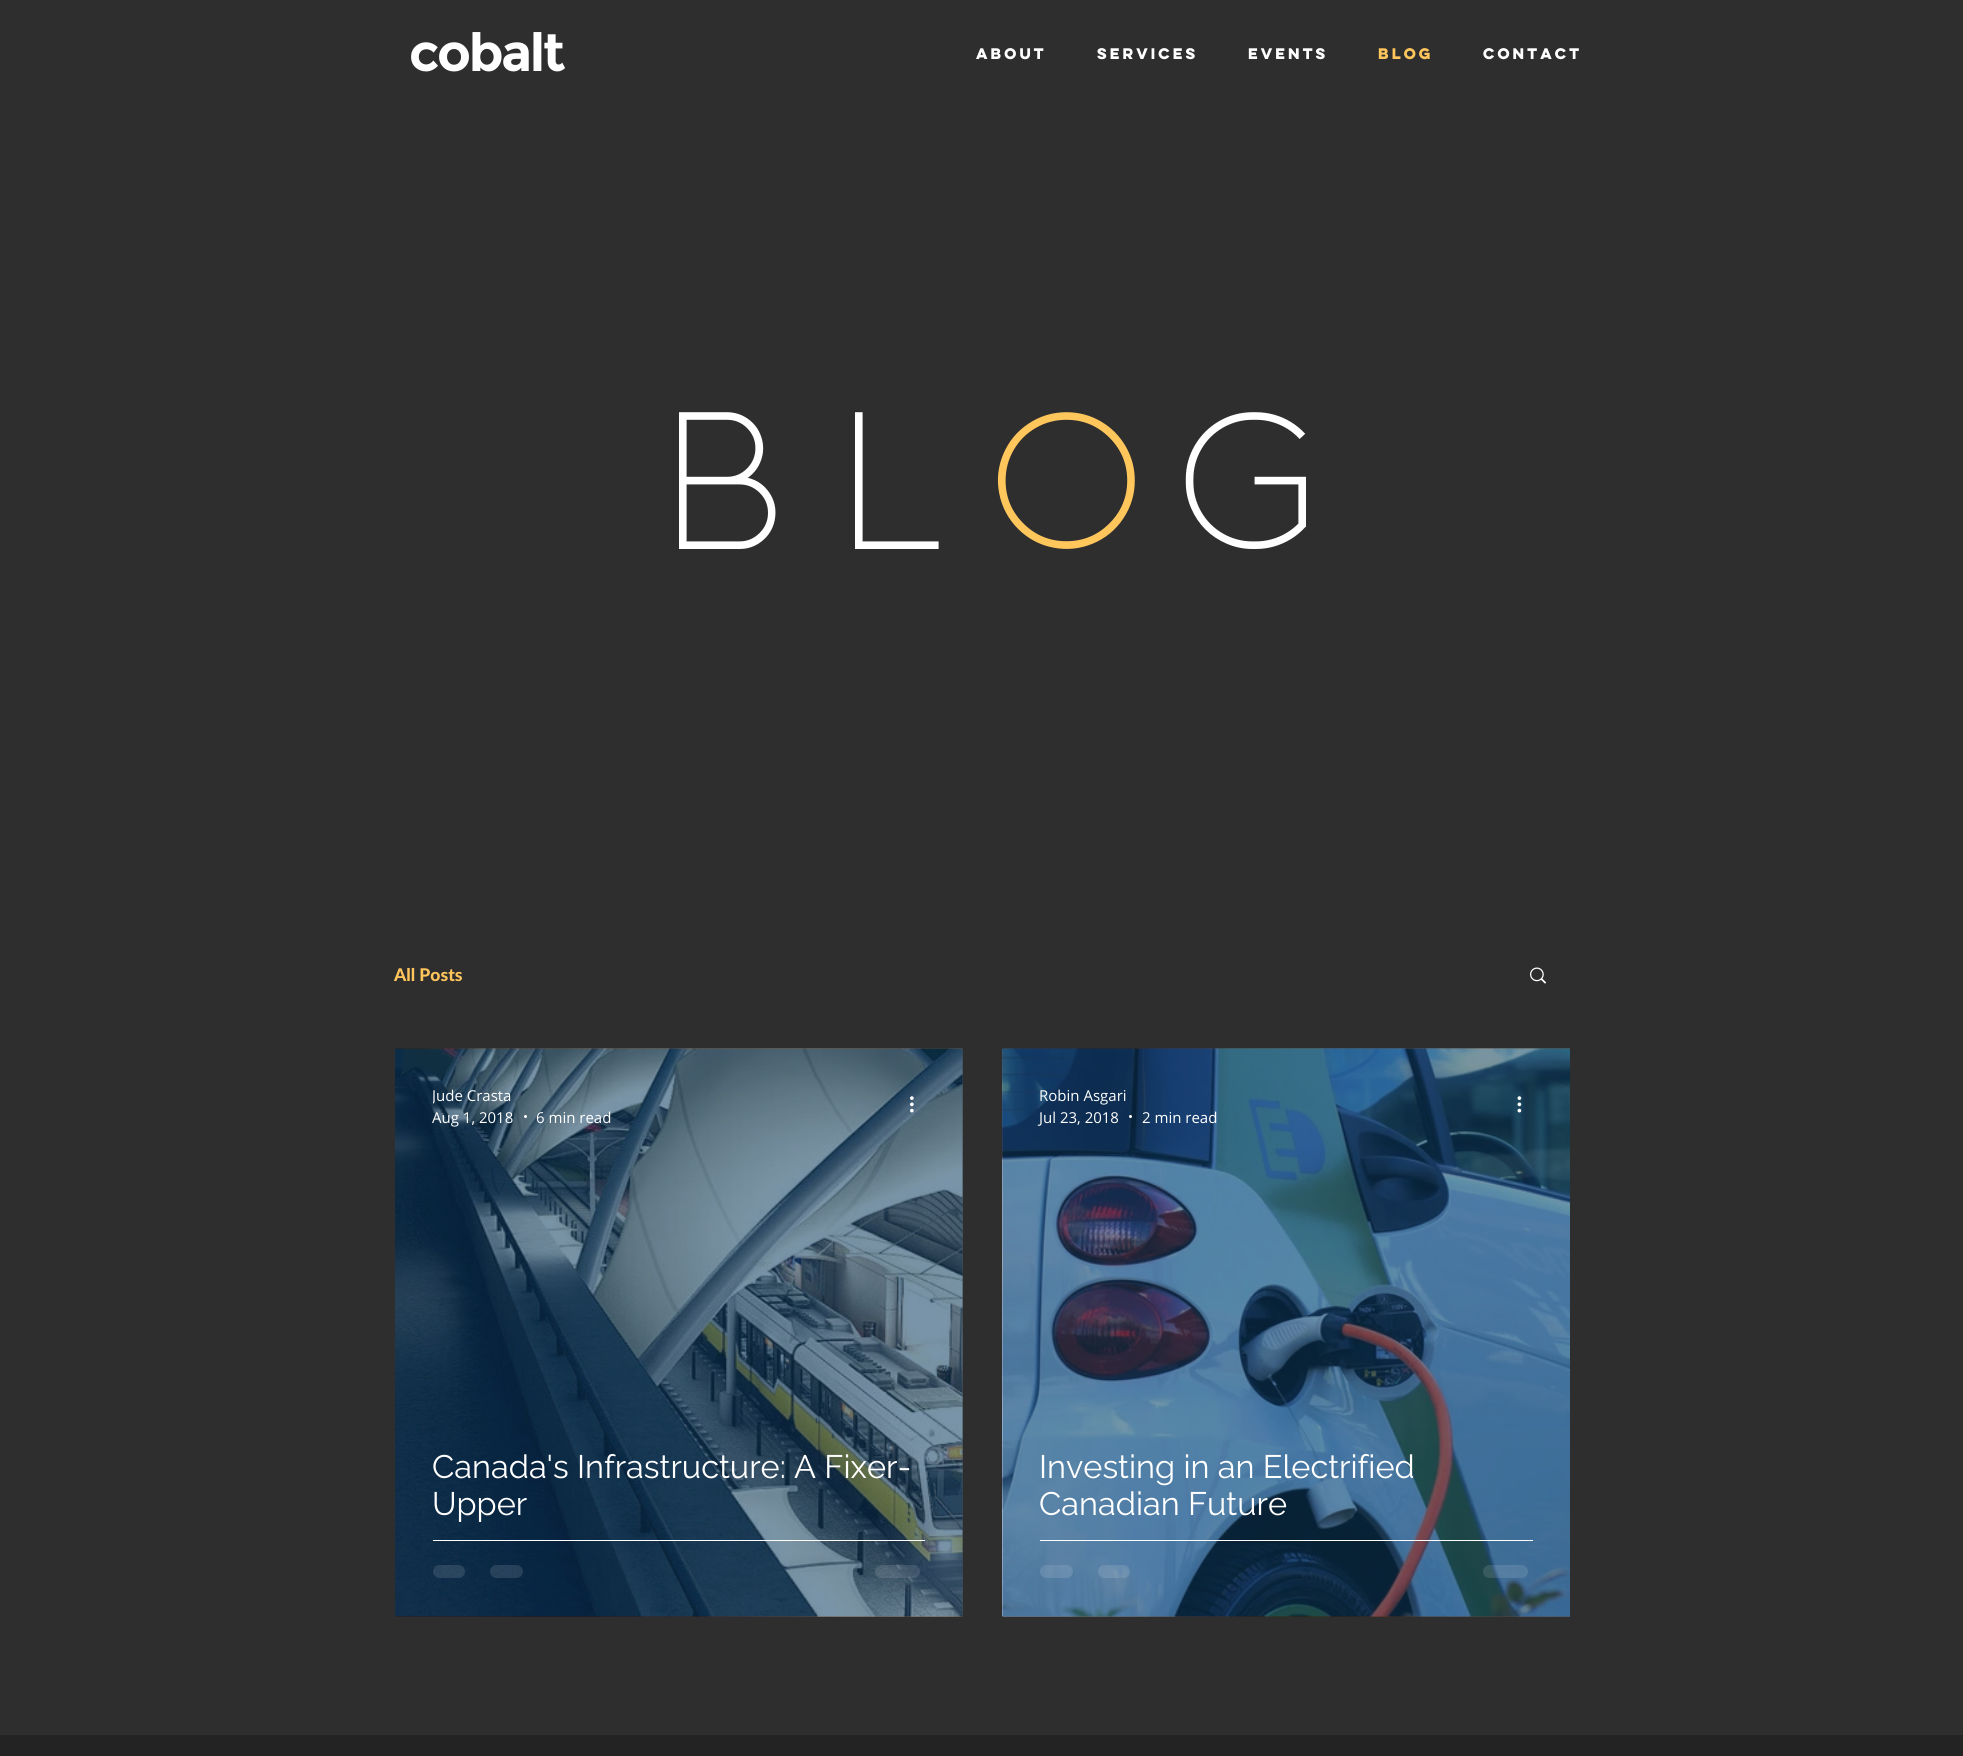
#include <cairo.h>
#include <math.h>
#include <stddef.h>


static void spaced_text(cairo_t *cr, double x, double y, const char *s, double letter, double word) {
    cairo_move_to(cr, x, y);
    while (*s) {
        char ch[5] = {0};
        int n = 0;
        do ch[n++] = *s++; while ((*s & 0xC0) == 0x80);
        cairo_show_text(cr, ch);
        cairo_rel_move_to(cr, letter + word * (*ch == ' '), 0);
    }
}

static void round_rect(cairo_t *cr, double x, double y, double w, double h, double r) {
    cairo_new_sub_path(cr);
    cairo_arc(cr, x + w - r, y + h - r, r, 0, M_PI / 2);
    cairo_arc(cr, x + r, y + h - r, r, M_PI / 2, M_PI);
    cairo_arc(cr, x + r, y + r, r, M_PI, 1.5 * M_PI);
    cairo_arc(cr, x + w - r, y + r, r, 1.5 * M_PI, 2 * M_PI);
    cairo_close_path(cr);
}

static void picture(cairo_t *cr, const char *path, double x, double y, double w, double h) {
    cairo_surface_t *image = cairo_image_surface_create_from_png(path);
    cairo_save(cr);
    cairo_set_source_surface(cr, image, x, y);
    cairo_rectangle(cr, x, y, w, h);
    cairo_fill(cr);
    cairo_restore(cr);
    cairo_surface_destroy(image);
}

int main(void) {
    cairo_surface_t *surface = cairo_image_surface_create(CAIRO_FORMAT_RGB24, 1963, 1756);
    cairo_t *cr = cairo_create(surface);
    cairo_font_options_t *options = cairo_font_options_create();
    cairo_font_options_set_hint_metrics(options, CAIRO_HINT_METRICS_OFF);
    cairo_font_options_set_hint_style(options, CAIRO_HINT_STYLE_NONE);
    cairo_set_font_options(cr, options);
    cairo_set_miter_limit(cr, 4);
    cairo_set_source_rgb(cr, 0.184, 0.18, 0.18);
    cairo_paint(cr);
    cairo_select_font_face(cr, "Montserrat", CAIRO_FONT_SLANT_NORMAL, CAIRO_FONT_WEIGHT_BOLD);
    cairo_set_font_size(cr, 52.5);
    cairo_set_source_rgb(cr, 1, 1, 1);
    spaced_text(cr, 409, 71, "cobalt", -2.5, 0);
    cairo_select_font_face(cr, "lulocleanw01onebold", CAIRO_FONT_SLANT_NORMAL, CAIRO_FONT_WEIGHT_BOLD);
    cairo_set_font_size(cr, 13.75);
    cairo_move_to(cr, 976, 59);
    cairo_show_text(cr, "About");
    cairo_move_to(cr, 1097, 59);
    cairo_show_text(cr, "Services");
    cairo_move_to(cr, 1248, 59);
    cairo_show_text(cr, "Events");
    cairo_set_source_rgb(cr, 1, 0.776, 0.361);
    cairo_move_to(cr, 1378, 59);
    cairo_show_text(cr, "Blog");
    cairo_set_source_rgb(cr, 1, 1, 1);
    cairo_move_to(cr, 1483, 59);
    cairo_show_text(cr, "Contact");
    cairo_select_font_face(cr, "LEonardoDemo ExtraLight", CAIRO_FONT_SLANT_NORMAL, CAIRO_FONT_WEIGHT_NORMAL);
    cairo_set_font_size(cr, 200);
    cairo_move_to(cr, 669, 549);
    cairo_show_text(cr, "b");
    cairo_move_to(cr, 845, 549);
    cairo_show_text(cr, "l");
    cairo_set_source_rgb(cr, 1, 0.776, 0.361);
    cairo_move_to(cr, 988, 549);
    cairo_show_text(cr, "o");
    cairo_set_source_rgb(cr, 1, 1, 1);
    cairo_move_to(cr, 1176, 549);
    cairo_show_text(cr, "g");
    cairo_select_font_face(cr, "Lato Black", CAIRO_FONT_SLANT_NORMAL, CAIRO_FONT_WEIGHT_NORMAL);
    cairo_set_font_size(cr, 17.5);
    cairo_set_source_rgb(cr, 1, 0.776, 0.361);
    cairo_move_to(cr, 394, 981);
    cairo_show_text(cr, "All Posts");
    picture(cr, "img1.png", 1530, 967, 17, 17);
    picture(cr, "img2.png", 395, 1048, 568, 569);
    picture(cr, "img3.png", 395, 1048, 568, 569);
    cairo_save(cr);
    cairo_rectangle(cr, 433, 1085, 78, 20);
    cairo_clip(cr);
    cairo_select_font_face(cr, "Open Sans", CAIRO_FONT_SLANT_NORMAL, CAIRO_FONT_WEIGHT_NORMAL);
    cairo_set_font_size(cr, 15);
    cairo_set_source_rgb(cr, 1, 1, 1);
    cairo_move_to(cr, 432, 1101);
    cairo_show_text(cr, "Jude Crasta");
    cairo_restore(cr);
    cairo_select_font_face(cr, "Open Sans", CAIRO_FONT_SLANT_NORMAL, CAIRO_FONT_WEIGHT_NORMAL);
    cairo_set_font_size(cr, 15);
    cairo_set_source_rgb(cr, 1, 1, 1);
    cairo_move_to(cr, 432, 1123);
    cairo_show_text(cr, "Aug 1, 2018");
    cairo_new_path(cr);
    cairo_arc(cr, 525.5, 1116.5, 1.5, 0, 2 * M_PI);
    cairo_fill(cr);
    cairo_move_to(cr, 536, 1123);
    cairo_show_text(cr, "6 min read");
    picture(cr, "img4.png", 910, 1096, 4, 17);
    cairo_select_font_face(cr, "Raleway", CAIRO_FONT_SLANT_NORMAL, CAIRO_FONT_WEIGHT_NORMAL);
    cairo_set_font_size(cr, 32.5);
    cairo_move_to(cr, 432, 1478);
    cairo_show_text(cr, "Canada's Infrastructure: A Fixer-");
    cairo_move_to(cr, 432, 1515);
    cairo_show_text(cr, "Upper");
    cairo_rectangle(cr, 433, 1540, 492, 1);
    cairo_fill(cr);
    cairo_set_source_rgba(cr, 1, 1, 1, 0.12);
    round_rect(cr, 433, 1565, 32, 13, 6.5);
    cairo_fill(cr);
    round_rect(cr, 490, 1565, 33, 13, 6.5);
    cairo_fill(cr);
    round_rect(cr, 875, 1565, 45, 13, 6.5);
    cairo_fill(cr);
    picture(cr, "img5.png", 1002, 1048, 568, 569);
    picture(cr, "img6.png", 1002, 1048, 568, 569);
    cairo_select_font_face(cr, "Open Sans", CAIRO_FONT_SLANT_NORMAL, CAIRO_FONT_WEIGHT_NORMAL);
    cairo_set_font_size(cr, 15);
    cairo_set_source_rgb(cr, 1, 1, 1);
    cairo_move_to(cr, 1039, 1101);
    cairo_show_text(cr, "Robin Asgari");
    cairo_move_to(cr, 1039, 1123);
    cairo_show_text(cr, "Jul 23, 2018");
    cairo_new_path(cr);
    cairo_arc(cr, 1130.5, 1116.5, 1.5, 0, 2 * M_PI);
    cairo_fill(cr);
    cairo_move_to(cr, 1142, 1123);
    cairo_show_text(cr, "2 min read");
    picture(cr, "img7.png", 1517, 1096, 5, 17);
    cairo_select_font_face(cr, "Raleway", CAIRO_FONT_SLANT_NORMAL, CAIRO_FONT_WEIGHT_NORMAL);
    cairo_set_font_size(cr, 32.5);
    cairo_move_to(cr, 1039, 1478);
    cairo_show_text(cr, "Investing in an Electrified");
    cairo_move_to(cr, 1039, 1515);
    cairo_show_text(cr, "Canadian Future");
    cairo_rectangle(cr, 1040, 1540, 493, 1);
    cairo_fill(cr);
    cairo_set_source_rgba(cr, 1, 1, 1, 0.12);
    round_rect(cr, 1040, 1565, 33, 13, 6.5);
    cairo_fill(cr);
    round_rect(cr, 1098, 1565, 32, 13, 6.5);
    cairo_fill(cr);
    round_rect(cr, 1483, 1565, 45, 13, 6.5);
    cairo_fill(cr);
    cairo_set_source_rgb(cr, 0.141, 0.137, 0.137);
    cairo_rectangle(cr, 0, 1735, 1963, 21);
    cairo_fill(cr);
    cairo_surface_write_to_png(surface, "page.png");
    cairo_font_options_destroy(options);
    cairo_destroy(cr);
    cairo_surface_destroy(surface);
    return 0;
}
